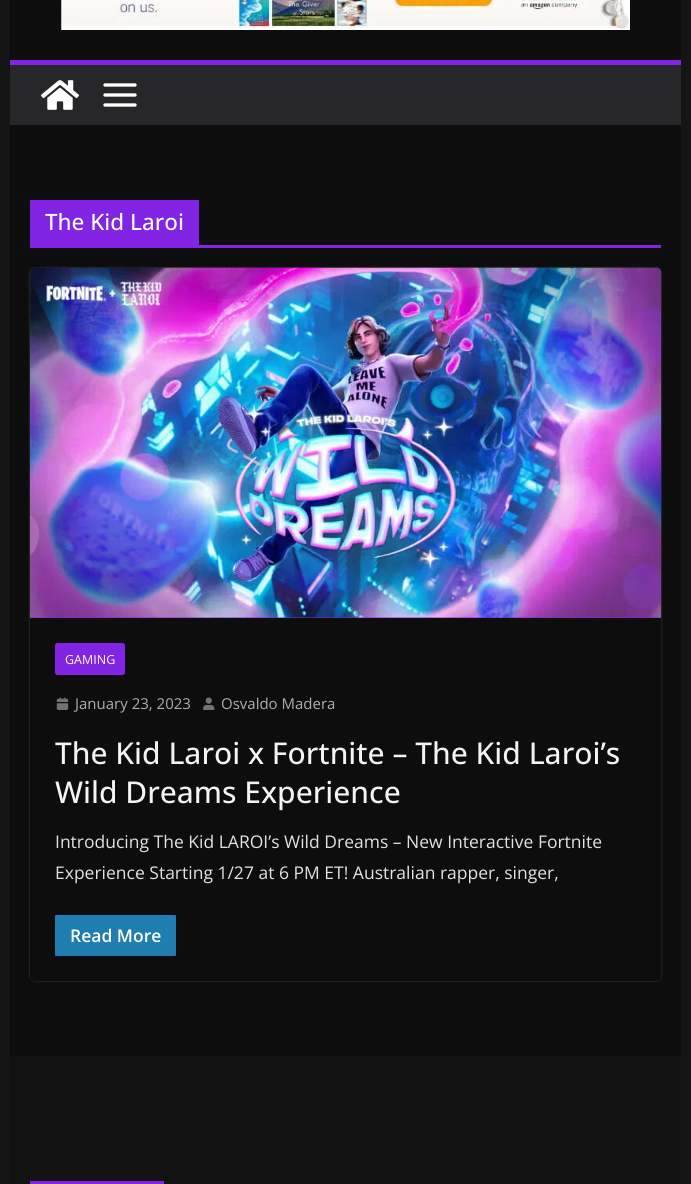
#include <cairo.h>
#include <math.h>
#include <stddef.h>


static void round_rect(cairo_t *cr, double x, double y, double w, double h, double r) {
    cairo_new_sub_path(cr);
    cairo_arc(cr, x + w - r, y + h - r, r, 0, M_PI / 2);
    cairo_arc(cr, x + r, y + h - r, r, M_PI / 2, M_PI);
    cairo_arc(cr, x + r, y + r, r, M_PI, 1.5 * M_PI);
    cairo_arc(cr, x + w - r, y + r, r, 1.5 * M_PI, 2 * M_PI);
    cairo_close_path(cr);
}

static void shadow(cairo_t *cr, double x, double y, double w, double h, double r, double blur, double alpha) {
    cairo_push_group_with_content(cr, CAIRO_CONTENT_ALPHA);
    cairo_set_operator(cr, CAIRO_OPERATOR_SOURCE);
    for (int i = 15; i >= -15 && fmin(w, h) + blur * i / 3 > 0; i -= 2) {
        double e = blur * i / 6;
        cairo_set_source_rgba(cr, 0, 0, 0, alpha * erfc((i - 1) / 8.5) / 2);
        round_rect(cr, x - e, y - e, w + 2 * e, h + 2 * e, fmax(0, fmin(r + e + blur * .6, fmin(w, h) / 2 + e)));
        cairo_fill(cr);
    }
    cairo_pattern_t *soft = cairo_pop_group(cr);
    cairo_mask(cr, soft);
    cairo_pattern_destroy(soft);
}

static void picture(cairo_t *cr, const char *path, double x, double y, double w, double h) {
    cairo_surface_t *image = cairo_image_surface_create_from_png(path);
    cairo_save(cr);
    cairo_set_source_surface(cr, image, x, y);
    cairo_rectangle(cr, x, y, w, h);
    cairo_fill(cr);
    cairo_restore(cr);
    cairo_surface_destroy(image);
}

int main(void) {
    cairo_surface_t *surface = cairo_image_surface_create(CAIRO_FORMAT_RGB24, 691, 1184);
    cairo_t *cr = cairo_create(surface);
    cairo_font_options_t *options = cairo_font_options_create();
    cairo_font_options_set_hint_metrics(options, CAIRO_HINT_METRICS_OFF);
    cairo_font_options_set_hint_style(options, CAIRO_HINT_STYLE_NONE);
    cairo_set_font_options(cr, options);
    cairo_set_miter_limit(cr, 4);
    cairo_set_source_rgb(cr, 0.082, 0.082, 0.082);
    cairo_paint(cr);
    cairo_set_source_rgb(cr, 0.051, 0.051, 0.051);
    cairo_rectangle(cr, 10, 0, 671, 60);
    cairo_fill(cr);
    picture(cr, "img1.png", 61, 0, 569, 30);
    cairo_set_source_rgb(cr, 0.153, 0.153, 0.165);
    cairo_rectangle(cr, 10, 65, 671, 60);
    cairo_fill(cr);
    cairo_set_source_rgb(cr, 0.51, 0.141, 0.89);
    cairo_rectangle(cr, 10, 60, 671, 5);
    cairo_fill(cr);
    picture(cr, "img2.png", 41, 80, 38, 30);
    picture(cr, "img3.png", 103, 83, 34, 24);
    cairo_set_source_rgb(cr, 0.051, 0.051, 0.051);
    cairo_rectangle(cr, 10, 125, 671, 931);
    cairo_fill(cr);
    cairo_set_source_rgb(cr, 0.51, 0.141, 0.89);
    cairo_rectangle(cr, 30, 245, 631, 3);
    cairo_fill(cr);
    cairo_rectangle(cr, 30, 200, 169, 45);
    cairo_fill(cr);
    cairo_select_font_face(cr, "Open Sans Medium", CAIRO_FONT_SLANT_NORMAL, CAIRO_FONT_WEIGHT_NORMAL);
    cairo_set_font_size(cr, 22.5);
    cairo_set_source_rgb(cr, 1, 1, 1);
    cairo_move_to(cr, 45, 230);
    cairo_show_text(cr, "The Kid Laroi");
    cairo_save(cr);
    cairo_set_fill_rule(cr, CAIRO_FILL_RULE_EVEN_ODD);
    cairo_new_path(cr);
    cairo_move_to(cr, 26, 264);
    cairo_line_to(cr, 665, 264);
    cairo_line_to(cr, 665, 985);
    cairo_line_to(cr, 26, 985);
    cairo_close_path(cr);
    cairo_move_to(cr, 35, 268);
    cairo_line_to(cr, 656, 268);
    cairo_curve_to(cr, 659, 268, 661, 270, 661, 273);
    cairo_line_to(cr, 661, 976);
    cairo_curve_to(cr, 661, 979, 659, 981, 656, 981);
    cairo_line_to(cr, 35, 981);
    cairo_curve_to(cr, 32, 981, 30, 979, 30, 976);
    cairo_line_to(cr, 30, 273);
    cairo_curve_to(cr, 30, 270, 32, 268, 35, 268);
    cairo_close_path(cr);
    cairo_clip(cr);
    cairo_set_source_rgb(cr, 1, 1, 1);
    shadow(cr, 30, 268, 631, 713, 5, 1, 0.24);
    cairo_restore(cr);
    cairo_set_source_rgb(cr, 0.51, 0.141, 0.89);
    cairo_new_path(cr);
    cairo_move_to(cr, 35, 268);
    cairo_line_to(cr, 656, 268);
    cairo_curve_to(cr, 659, 268, 661, 270, 661, 273);
    cairo_line_to(cr, 661, 618);
    cairo_line_to(cr, 30, 618);
    cairo_line_to(cr, 30, 273);
    cairo_curve_to(cr, 30, 270, 32, 268, 35, 268);
    cairo_close_path(cr);
    cairo_fill(cr);
    picture(cr, "img4.png", 30, 267, 632, 351);
    round_rect(cr, 55, 643, 70, 32, 2.5);
    cairo_fill(cr);
    cairo_select_font_face(cr, "Open Sans", CAIRO_FONT_SLANT_NORMAL, CAIRO_FONT_WEIGHT_NORMAL);
    cairo_set_font_size(cr, 12.5);
    cairo_set_source_rgb(cr, 1, 1, 1);
    cairo_move_to(cr, 65, 664);
    cairo_show_text(cr, "GAMING");
    picture(cr, "img5.png", 56, 697, 13, 13);
    cairo_set_font_size(cr, 15);
    cairo_set_source_rgb(cr, 0.682, 0.682, 0.682);
    cairo_move_to(cr, 75, 709);
    cairo_show_text(cr, "January 23, 2023");
    picture(cr, "img6.png", 203, 697, 12, 13);
    cairo_move_to(cr, 221, 709);
    cairo_show_text(cr, "Osvaldo Madera");
    cairo_select_font_face(cr, "Open Sans Medium", CAIRO_FONT_SLANT_NORMAL, CAIRO_FONT_WEIGHT_NORMAL);
    cairo_set_font_size(cr, 30);
    cairo_set_source_rgb(cr, 0.957, 0.957, 0.961);
    cairo_move_to(cr, 55, 764);
    cairo_show_text(cr, "The Kid Laroi x Fortnite – The Kid Laroi’s");
    cairo_move_to(cr, 55, 803);
    cairo_show_text(cr, "Wild Dreams Experience");
    cairo_select_font_face(cr, "Open Sans", CAIRO_FONT_SLANT_NORMAL, CAIRO_FONT_WEIGHT_NORMAL);
    cairo_set_font_size(cr, 17.5);
    cairo_set_source_rgb(cr, 0.89, 0.886, 0.886);
    cairo_move_to(cr, 55, 848);
    cairo_show_text(cr, "Introducing The Kid LAROI’s Wild Dreams – New Interactive Fortnite");
    cairo_move_to(cr, 55, 879);
    cairo_show_text(cr, "Experience Starting 1/27 at 6 PM ET! Australian rapper, singer,");
    cairo_set_source_rgb(cr, 0.51, 0.141, 0.89);
    cairo_rectangle(cr, 55, 915, 121, 41);
    cairo_fill(cr);
    cairo_set_source_rgb(cr, 0.125, 0.49, 0.686);
    round_rect(cr, 55, 915, 121, 41, 2.5);
    cairo_fill(cr);
    cairo_select_font_face(cr, "Open Sans SemiBold", CAIRO_FONT_SLANT_NORMAL, CAIRO_FONT_WEIGHT_NORMAL);
    cairo_set_source_rgb(cr, 1, 1, 1);
    cairo_move_to(cr, 70, 942);
    cairo_show_text(cr, "Read More");
    cairo_set_source_rgb(cr, 0.071, 0.071, 0.071);
    cairo_rectangle(cr, 10, 1056, 671, 128);
    cairo_fill(cr);
    cairo_set_source_rgb(cr, 0.51, 0.141, 0.89);
    cairo_rectangle(cr, 30, 1181, 134, 3);
    cairo_fill(cr);
    cairo_surface_write_to_png(surface, "page.png");
    cairo_font_options_destroy(options);
    cairo_destroy(cr);
    cairo_surface_destroy(surface);
    return 0;
}
